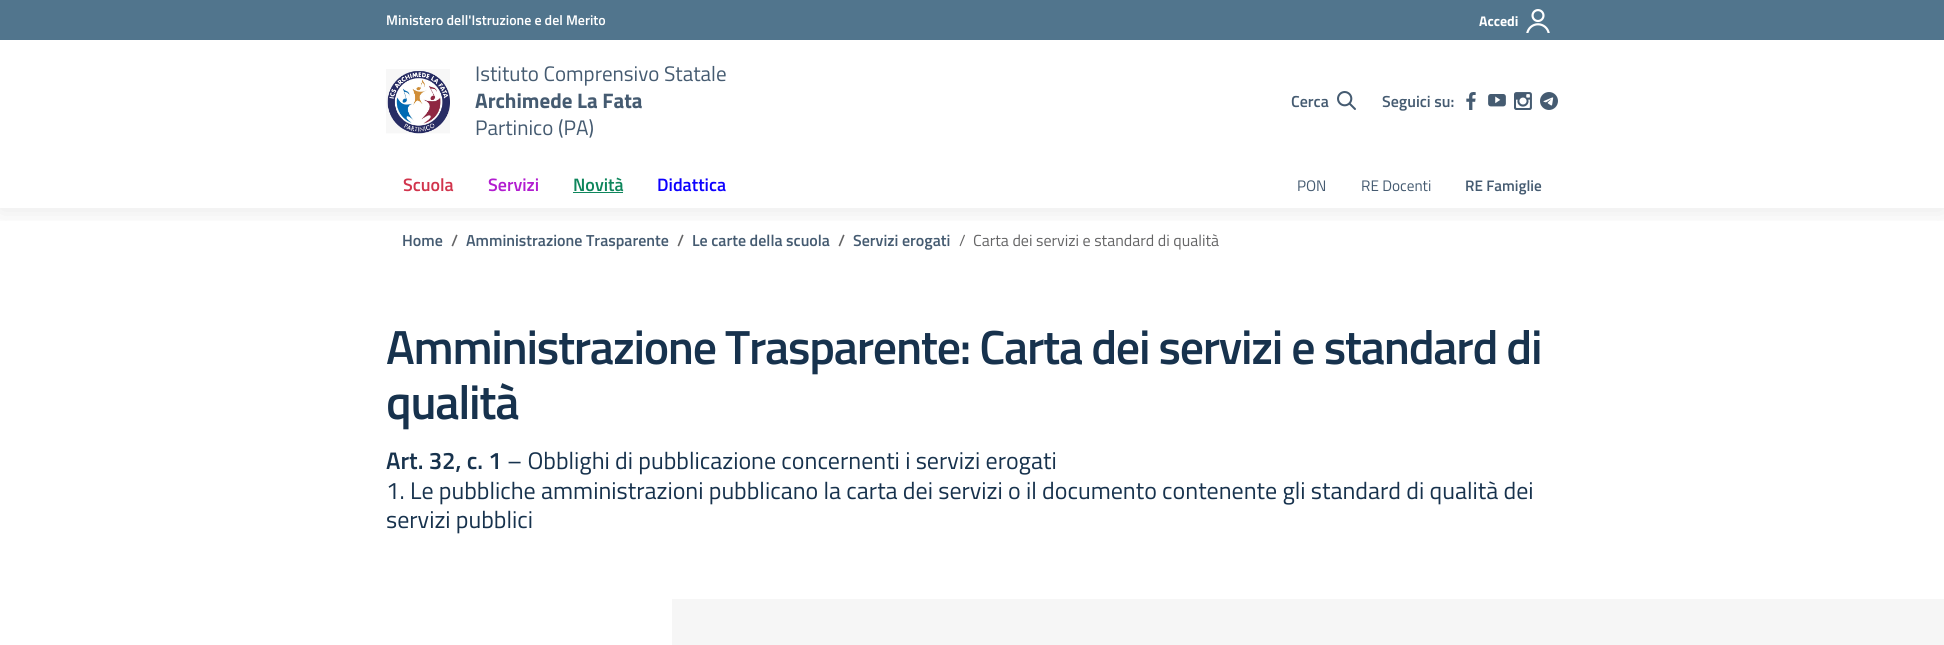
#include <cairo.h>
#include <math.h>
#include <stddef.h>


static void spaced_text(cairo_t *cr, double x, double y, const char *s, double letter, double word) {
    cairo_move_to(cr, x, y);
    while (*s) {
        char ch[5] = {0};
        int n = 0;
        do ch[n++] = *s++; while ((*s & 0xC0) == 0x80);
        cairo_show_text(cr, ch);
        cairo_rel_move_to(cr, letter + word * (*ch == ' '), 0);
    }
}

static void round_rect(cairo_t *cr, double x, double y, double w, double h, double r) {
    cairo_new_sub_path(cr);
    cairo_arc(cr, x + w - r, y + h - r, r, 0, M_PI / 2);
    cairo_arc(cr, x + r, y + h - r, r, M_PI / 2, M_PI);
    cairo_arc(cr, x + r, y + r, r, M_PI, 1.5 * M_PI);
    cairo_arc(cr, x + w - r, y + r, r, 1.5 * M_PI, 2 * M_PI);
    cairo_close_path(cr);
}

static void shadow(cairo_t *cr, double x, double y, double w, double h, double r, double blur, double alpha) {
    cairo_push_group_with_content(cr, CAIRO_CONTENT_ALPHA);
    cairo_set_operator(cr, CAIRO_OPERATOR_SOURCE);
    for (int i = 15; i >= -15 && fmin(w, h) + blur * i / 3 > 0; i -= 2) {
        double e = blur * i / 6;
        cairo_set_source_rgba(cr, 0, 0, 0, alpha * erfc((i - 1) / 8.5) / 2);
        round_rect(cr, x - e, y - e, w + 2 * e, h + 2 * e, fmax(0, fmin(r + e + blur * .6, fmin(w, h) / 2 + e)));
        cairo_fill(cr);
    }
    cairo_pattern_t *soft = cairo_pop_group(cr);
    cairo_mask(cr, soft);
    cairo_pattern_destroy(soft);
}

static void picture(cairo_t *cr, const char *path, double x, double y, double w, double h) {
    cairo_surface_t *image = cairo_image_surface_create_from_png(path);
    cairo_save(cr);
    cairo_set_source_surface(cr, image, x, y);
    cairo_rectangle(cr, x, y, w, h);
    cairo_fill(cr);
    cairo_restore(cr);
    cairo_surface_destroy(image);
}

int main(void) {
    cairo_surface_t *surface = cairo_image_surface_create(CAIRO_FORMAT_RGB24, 1944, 645);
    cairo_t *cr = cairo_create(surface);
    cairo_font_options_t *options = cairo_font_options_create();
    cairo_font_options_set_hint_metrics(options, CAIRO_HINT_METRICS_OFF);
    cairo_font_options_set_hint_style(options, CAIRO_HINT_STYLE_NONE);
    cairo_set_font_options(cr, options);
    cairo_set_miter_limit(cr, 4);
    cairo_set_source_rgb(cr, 1, 1, 1);
    cairo_paint(cr);
    cairo_save(cr);
    cairo_rectangle(cr, 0, 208, 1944, 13);
    cairo_clip(cr);
    cairo_set_source_rgb(cr, 0, 0, 0);
    shadow(cr, 0, 2, 1944, 208, 0, 12.5, 0.1);
    cairo_restore(cr);
    cairo_set_source_rgb(cr, 0.318, 0.459, 0.553);
    cairo_rectangle(cr, 0, 0, 1944, 40);
    cairo_fill(cr);
    cairo_select_font_face(cr, "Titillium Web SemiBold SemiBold", CAIRO_FONT_SLANT_NORMAL, CAIRO_FONT_WEIGHT_NORMAL);
    cairo_set_font_size(cr, 14);
    cairo_set_source_rgb(cr, 1, 1, 1);
    cairo_move_to(cr, 386, 25);
    cairo_show_text(cr, "Ministero dell'Istruzione e del Merito");
    cairo_select_font_face(cr, "Titillium Web", CAIRO_FONT_SLANT_NORMAL, CAIRO_FONT_WEIGHT_BOLD);
    cairo_move_to(cr, 1479, 26);
    cairo_show_text(cr, "Accedi");
    picture(cr, "img1.png", 1526, 9, 24, 24);
    picture(cr, "img2.png", 386, 69, 64, 65);
    cairo_select_font_face(cr, "Titillium Web", CAIRO_FONT_SLANT_NORMAL, CAIRO_FONT_WEIGHT_NORMAL);
    cairo_set_font_size(cr, 21);
    cairo_set_source_rgb(cr, 0.271, 0.357, 0.443);
    cairo_move_to(cr, 475, 81);
    cairo_show_text(cr, "Istituto Comprensivo Statale");
    cairo_select_font_face(cr, "Titillium Web", CAIRO_FONT_SLANT_NORMAL, CAIRO_FONT_WEIGHT_BOLD);
    cairo_move_to(cr, 475, 108);
    cairo_show_text(cr, "Archimede La Fata");
    cairo_select_font_face(cr, "Titillium Web", CAIRO_FONT_SLANT_NORMAL, CAIRO_FONT_WEIGHT_NORMAL);
    cairo_move_to(cr, 475, 135);
    cairo_show_text(cr, "Partinico (PA)");
    cairo_select_font_face(cr, "Titillium Web SemiBold SemiBold", CAIRO_FONT_SLANT_NORMAL, CAIRO_FONT_WEIGHT_NORMAL);
    cairo_set_font_size(cr, 16);
    cairo_move_to(cr, 1291, 107);
    cairo_show_text(cr, "Cerca");
    picture(cr, "img3.png", 1337, 91, 19, 19);
    cairo_move_to(cr, 1382, 107);
    cairo_show_text(cr, "Seguici su:");
    picture(cr, "img4.png", 1466, 92, 10, 18);
    picture(cr, "img5.png", 1488, 94, 18, 13);
    picture(cr, "img6.png", 1514, 92, 18, 18);
    picture(cr, "img7.png", 1540, 92, 18, 18);
    cairo_set_font_size(cr, 18);
    cairo_set_source_rgb(cr, 0.82, 0.204, 0.298);
    cairo_move_to(cr, 403, 191);
    cairo_show_text(cr, "Scuola");
    cairo_set_source_rgb(cr, 0.698, 0.114, 0.816);
    cairo_move_to(cr, 488, 191);
    cairo_show_text(cr, "Servizi");
    cairo_set_source_rgb(cr, 0.055, 0.525, 0.361);
    cairo_move_to(cr, 573, 191);
    cairo_show_text(cr, "Novità");
    cairo_rectangle(cr, 573, 192, 50, 1);
    cairo_fill(cr);
    cairo_set_source_rgb(cr, 0.051, 0, 1);
    cairo_move_to(cr, 657, 191);
    cairo_show_text(cr, "Didattica");
    cairo_select_font_face(cr, "Titillium Web", CAIRO_FONT_SLANT_NORMAL, CAIRO_FONT_WEIGHT_NORMAL);
    cairo_set_font_size(cr, 15.25);
    cairo_set_source_rgb(cr, 0.271, 0.357, 0.443);
    cairo_move_to(cr, 1297, 191);
    cairo_show_text(cr, "PON");
    cairo_move_to(cr, 1361, 191);
    cairo_show_text(cr, "RE Docenti");
    cairo_select_font_face(cr, "Titillium Web SemiBold SemiBold", CAIRO_FONT_SLANT_NORMAL, CAIRO_FONT_WEIGHT_NORMAL);
    cairo_move_to(cr, 1465, 191);
    cairo_show_text(cr, "RE Famiglie");
    cairo_set_font_size(cr, 16);
    cairo_move_to(cr, 402, 246);
    cairo_show_text(cr, "Home");
    cairo_set_source_rgb(cr, 0.396, 0.396, 0.4);
    cairo_move_to(cr, 451, 246);
    cairo_show_text(cr, "/");
    cairo_set_source_rgb(cr, 0.271, 0.357, 0.443);
    cairo_move_to(cr, 466, 246);
    cairo_show_text(cr, "Amministrazione Trasparente");
    cairo_set_source_rgb(cr, 0.396, 0.396, 0.4);
    cairo_move_to(cr, 677, 246);
    cairo_show_text(cr, "/");
    cairo_set_source_rgb(cr, 0.271, 0.357, 0.443);
    cairo_move_to(cr, 692, 246);
    cairo_show_text(cr, "Le carte della scuola");
    cairo_set_source_rgb(cr, 0.396, 0.396, 0.4);
    cairo_move_to(cr, 838, 246);
    cairo_show_text(cr, "/");
    cairo_set_source_rgb(cr, 0.271, 0.357, 0.443);
    cairo_move_to(cr, 853, 246);
    cairo_show_text(cr, "Servizi erogati");
    cairo_select_font_face(cr, "Titillium Web", CAIRO_FONT_SLANT_NORMAL, CAIRO_FONT_WEIGHT_NORMAL);
    cairo_set_source_rgb(cr, 0.396, 0.396, 0.4);
    cairo_move_to(cr, 959, 246);
    cairo_show_text(cr, "/");
    cairo_move_to(cr, 973, 246);
    cairo_show_text(cr, "Carta dei servizi e standard di qualità");
    cairo_select_font_face(cr, "Titillium Web SemiBold SemiBold", CAIRO_FONT_SLANT_NORMAL, CAIRO_FONT_WEIGHT_NORMAL);
    cairo_set_font_size(cr, 48);
    cairo_set_source_rgb(cr, 0.09, 0.196, 0.302);
    spaced_text(cr, 386, 364, "Amministrazione Trasparente: Carta dei servizi e standard di", -1.3, 0);
    spaced_text(cr, 386, 419, "qualità", -1.3, 0);
    cairo_set_font_size(cr, 24);
    cairo_move_to(cr, 386, 469);
    cairo_show_text(cr, "Art. 32, c. 1");
    cairo_select_font_face(cr, "Titillium Web", CAIRO_FONT_SLANT_NORMAL, CAIRO_FONT_WEIGHT_NORMAL);
    cairo_move_to(cr, 507, 469);
    cairo_show_text(cr, "– Obblighi di pubblicazione concernenti i servizi erogati");
    cairo_move_to(cr, 386, 499);
    cairo_show_text(cr, "1. Le pubbliche amministrazioni pubblicano la carta dei servizi o il documento contenente gli standard di qualità dei");
    cairo_move_to(cr, 386, 528);
    cairo_show_text(cr, "servizi pubblici");
    cairo_set_source_rgb(cr, 0.961, 0.961, 0.961);
    cairo_rectangle(cr, 672, 599, 1272, 46);
    cairo_fill(cr);
    cairo_surface_write_to_png(surface, "page.png");
    cairo_font_options_destroy(options);
    cairo_destroy(cr);
    cairo_surface_destroy(surface);
    return 0;
}
